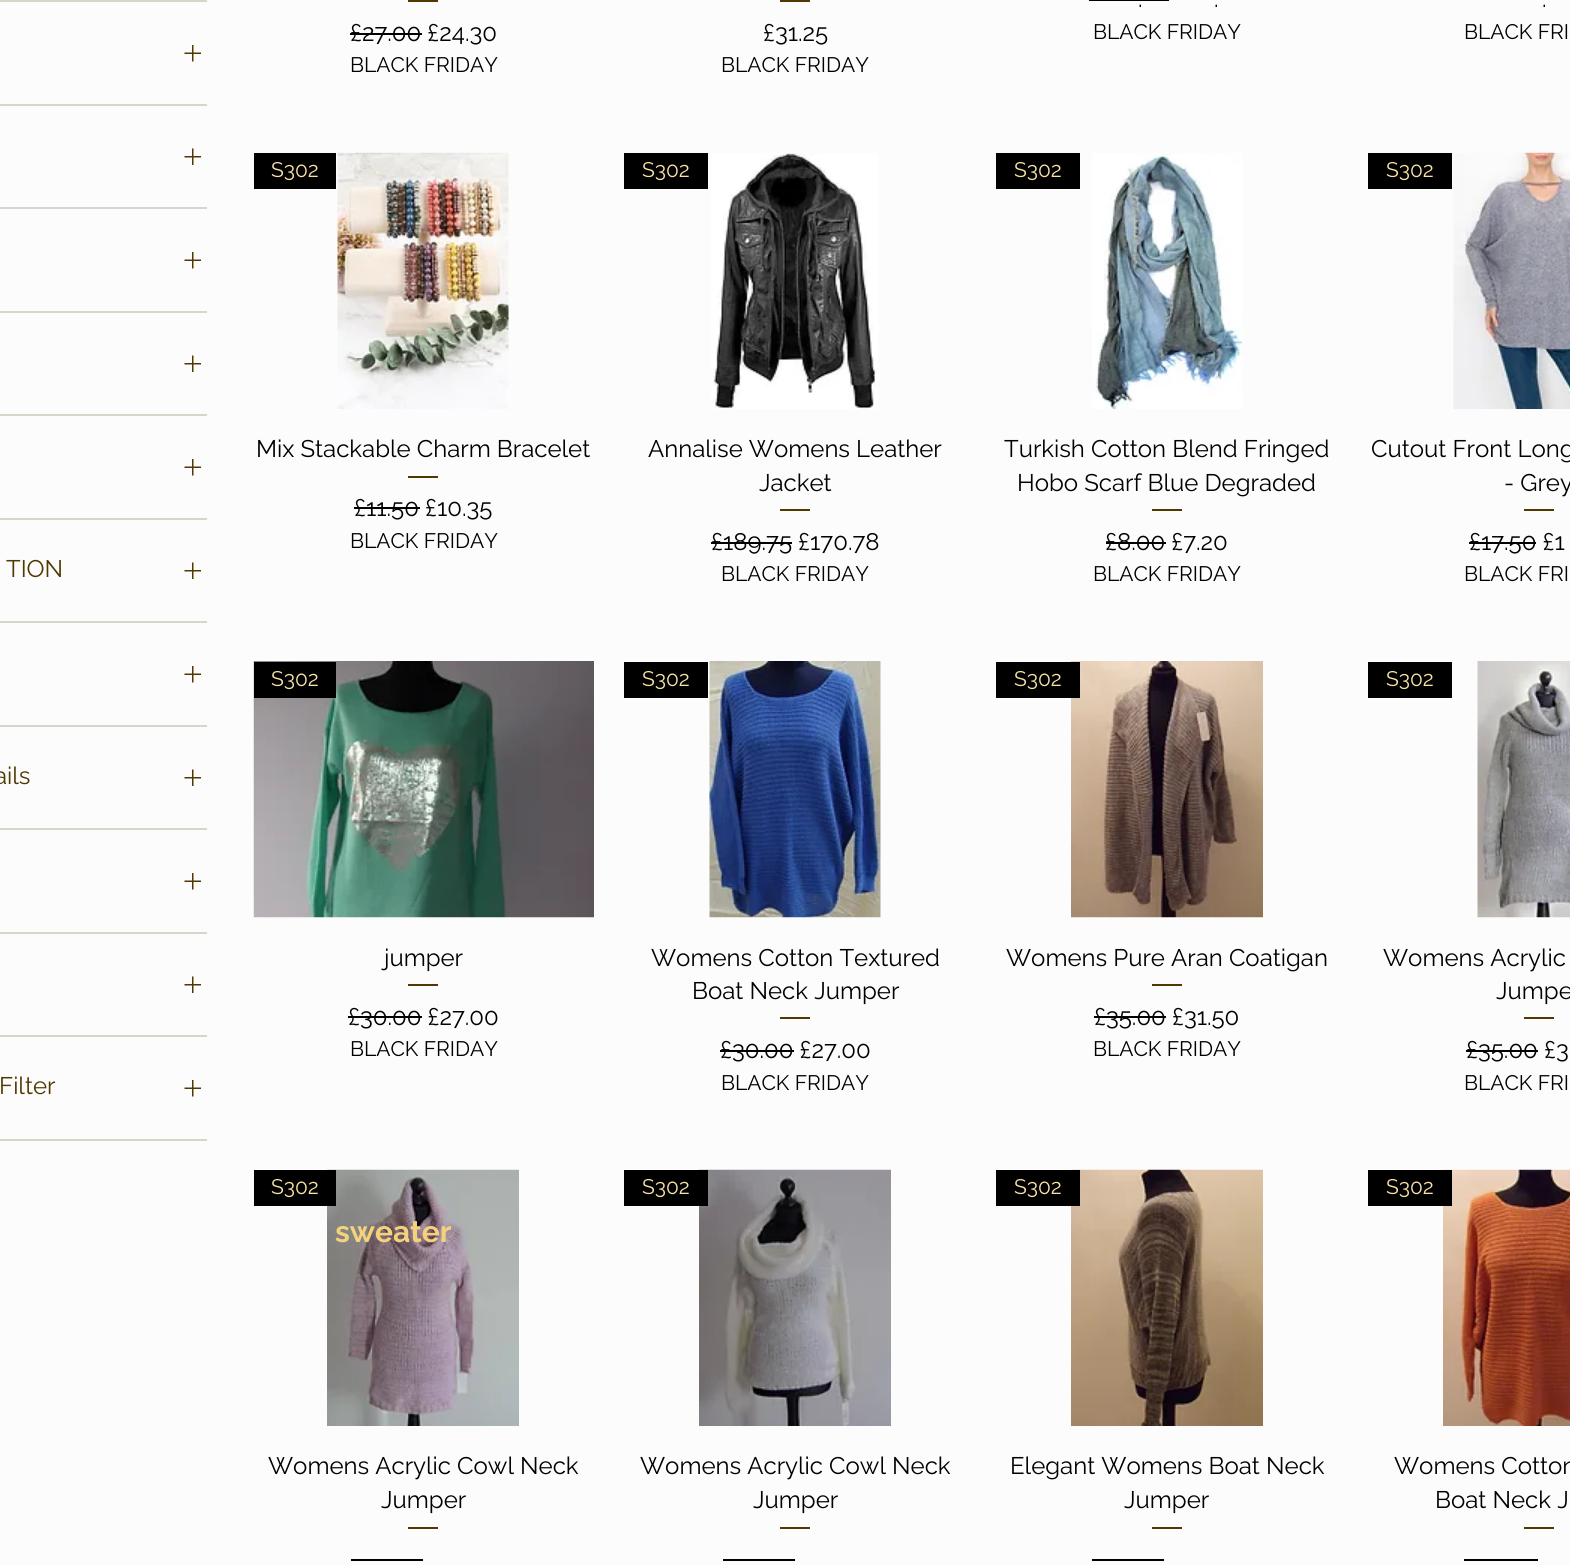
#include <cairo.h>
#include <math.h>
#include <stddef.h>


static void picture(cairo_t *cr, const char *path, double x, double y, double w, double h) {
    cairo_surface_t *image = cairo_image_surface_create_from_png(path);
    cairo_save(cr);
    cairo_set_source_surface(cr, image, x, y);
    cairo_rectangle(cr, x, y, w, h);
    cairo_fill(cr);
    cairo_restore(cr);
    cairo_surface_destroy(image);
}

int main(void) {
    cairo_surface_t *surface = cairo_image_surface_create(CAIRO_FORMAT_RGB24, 1570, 1565);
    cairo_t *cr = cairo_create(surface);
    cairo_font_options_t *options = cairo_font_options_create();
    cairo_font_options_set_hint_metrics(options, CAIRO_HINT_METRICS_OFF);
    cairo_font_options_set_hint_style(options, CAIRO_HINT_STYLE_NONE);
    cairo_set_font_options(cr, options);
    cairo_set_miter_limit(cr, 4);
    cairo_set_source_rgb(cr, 0.992, 0.988, 0.988);
    cairo_paint(cr);
    cairo_set_source_rgb(cr, 0.855, 0.835, 0.792);
    cairo_rectangle(cr, 0, 0, 207, 2);
    cairo_fill(cr);
    cairo_rectangle(cr, 0, 104, 207, 2);
    cairo_fill(cr);
    picture(cr, "img1.png", 184, 45, 17, 17);
    cairo_rectangle(cr, 0, 207, 207, 2);
    cairo_fill(cr);
    picture(cr, "img2.png", 184, 148, 17, 17);
    cairo_rectangle(cr, 0, 311, 207, 2);
    cairo_fill(cr);
    picture(cr, "img1.png", 184, 252, 17, 17);
    cairo_rectangle(cr, 0, 414, 207, 2);
    cairo_fill(cr);
    picture(cr, "img2.png", 184, 355, 17, 17);
    cairo_rectangle(cr, 0, 518, 207, 2);
    cairo_fill(cr);
    picture(cr, "img1.png", 184, 459, 17, 17);
    cairo_rectangle(cr, 0, 621, 207, 2);
    cairo_fill(cr);
    cairo_select_font_face(cr, "Raleway", CAIRO_FONT_SLANT_NORMAL, CAIRO_FONT_WEIGHT_NORMAL);
    cairo_set_font_size(cr, 24);
    cairo_set_source_rgb(cr, 0.31, 0.224, 0);
    cairo_move_to(cr, 6, 577);
    cairo_show_text(cr, "TION");
    picture(cr, "img2.png", 184, 562, 17, 17);
    cairo_set_source_rgb(cr, 0.855, 0.835, 0.792);
    cairo_rectangle(cr, 0, 725, 207, 2);
    cairo_fill(cr);
    picture(cr, "img1.png", 184, 666, 17, 17);
    cairo_rectangle(cr, 0, 828, 207, 2);
    cairo_fill(cr);
    cairo_set_source_rgb(cr, 0.31, 0.224, 0);
    cairo_move_to(cr, -6, 784);
    cairo_show_text(cr, "ails");
    picture(cr, "img2.png", 184, 769, 17, 17);
    cairo_set_source_rgb(cr, 0.855, 0.835, 0.792);
    cairo_rectangle(cr, 0, 932, 207, 2);
    cairo_fill(cr);
    picture(cr, "img1.png", 184, 873, 17, 17);
    cairo_rectangle(cr, 0, 1035, 207, 2);
    cairo_fill(cr);
    picture(cr, "img2.png", 184, 976, 17, 17);
    cairo_rectangle(cr, 0, 1139, 207, 2);
    cairo_fill(cr);
    cairo_set_source_rgb(cr, 0.31, 0.224, 0);
    cairo_move_to(cr, -1, 1094);
    cairo_show_text(cr, "Filter");
    picture(cr, "img1.png", 184, 1080, 17, 17);
    cairo_rectangle(cr, 408, 0, 30, 2);
    cairo_fill(cr);
    cairo_set_source_rgb(cr, 0, 0, 0);
    cairo_move_to(cr, 350, 41);
    cairo_show_text(cr, "£27.00 £24.30");
    cairo_rectangle(cr, 350, 33, 72, 2);
    cairo_fill(cr);
    cairo_set_font_size(cr, 21);
    cairo_move_to(cr, 350, 72);
    cairo_show_text(cr, "BLACK FRIDAY");
    cairo_set_source_rgb(cr, 0.31, 0.224, 0);
    cairo_rectangle(cr, 780, 0, 30, 2);
    cairo_fill(cr);
    cairo_set_font_size(cr, 24);
    cairo_set_source_rgb(cr, 0, 0, 0);
    cairo_move_to(cr, 763, 41);
    cairo_show_text(cr, "£31.25");
    cairo_set_font_size(cr, 21);
    cairo_move_to(cr, 721, 72);
    cairo_show_text(cr, "BLACK FRIDAY");
    cairo_set_font_size(cr, 24);
    cairo_move_to(cr, 1138, 7);
    cairo_show_text(cr, ".");
    cairo_rectangle(cr, 1089, 0, 80, 1);
    cairo_fill(cr);
    cairo_move_to(cr, 1214, 7);
    cairo_show_text(cr, ".");
    cairo_set_font_size(cr, 21);
    cairo_move_to(cr, 1093, 39);
    cairo_show_text(cr, "BLACK FRIDAY");
    cairo_set_font_size(cr, 24);
    cairo_move_to(cr, 1542, 7);
    cairo_show_text(cr, ".");
    cairo_set_font_size(cr, 21);
    cairo_move_to(cr, 1464, 39);
    cairo_show_text(cr, "BLACK FRI");
    cairo_rectangle(cr, 254, 153, 82, 36);
    cairo_fill(cr);
    cairo_set_source_rgb(cr, 0.976, 0.886, 0.651);
    cairo_move_to(cr, 271, 177);
    cairo_show_text(cr, "S302");
    picture(cr, "img3.png", 337, 152, 172, 257);
    cairo_set_font_size(cr, 24);
    cairo_set_source_rgb(cr, 0, 0, 0);
    cairo_move_to(cr, 256, 457);
    cairo_show_text(cr, "Mix Stackable Charm Bracelet");
    cairo_set_source_rgb(cr, 0.31, 0.224, 0);
    cairo_rectangle(cr, 408, 476, 30, 2);
    cairo_fill(cr);
    cairo_set_source_rgb(cr, 0, 0, 0);
    cairo_move_to(cr, 354, 516);
    cairo_show_text(cr, "£11.50 £10.35");
    cairo_rectangle(cr, 354, 507, 66, 2);
    cairo_fill(cr);
    cairo_set_font_size(cr, 21);
    cairo_move_to(cr, 350, 548);
    cairo_show_text(cr, "BLACK FRIDAY");
    cairo_rectangle(cr, 624, 153, 84, 36);
    cairo_fill(cr);
    cairo_set_source_rgb(cr, 0.976, 0.886, 0.651);
    cairo_move_to(cr, 642, 177);
    cairo_show_text(cr, "S302");
    picture(cr, "img4.png", 711, 153, 167, 256);
    cairo_set_font_size(cr, 24);
    cairo_set_source_rgb(cr, 0, 0, 0);
    cairo_move_to(cr, 648, 457);
    cairo_show_text(cr, "Annalise Womens Leather");
    cairo_move_to(cr, 759, 491);
    cairo_show_text(cr, "Jacket");
    cairo_set_source_rgb(cr, 0.31, 0.224, 0);
    cairo_rectangle(cr, 780, 509, 30, 2);
    cairo_fill(cr);
    cairo_set_source_rgb(cr, 0, 0, 0);
    cairo_move_to(cr, 711, 550);
    cairo_show_text(cr, "£189.75 £170.78");
    cairo_rectangle(cr, 711, 542, 81, 2);
    cairo_fill(cr);
    cairo_set_font_size(cr, 21);
    cairo_move_to(cr, 721, 581);
    cairo_show_text(cr, "BLACK FRIDAY");
    cairo_rectangle(cr, 996, 153, 84, 36);
    cairo_fill(cr);
    cairo_set_source_rgb(cr, 0.976, 0.886, 0.651);
    cairo_move_to(cr, 1014, 177);
    cairo_show_text(cr, "S302");
    picture(cr, "img5.png", 1092, 153, 151, 256);
    cairo_set_font_size(cr, 24);
    cairo_set_source_rgb(cr, 0, 0, 0);
    cairo_move_to(cr, 1004, 457);
    cairo_show_text(cr, "Turkish Cotton Blend Fringed");
    cairo_move_to(cr, 1017, 491);
    cairo_show_text(cr, "Hobo Scarf Blue Degraded");
    cairo_set_source_rgb(cr, 0.31, 0.224, 0);
    cairo_rectangle(cr, 1152, 509, 30, 2);
    cairo_fill(cr);
    cairo_set_source_rgb(cr, 0, 0, 0);
    cairo_move_to(cr, 1105, 550);
    cairo_show_text(cr, "£8.00 £7.20");
    cairo_rectangle(cr, 1106, 542, 60, 2);
    cairo_fill(cr);
    cairo_set_font_size(cr, 21);
    cairo_move_to(cr, 1093, 581);
    cairo_show_text(cr, "BLACK FRIDAY");
    cairo_rectangle(cr, 1368, 153, 84, 36);
    cairo_fill(cr);
    cairo_set_source_rgb(cr, 0.976, 0.886, 0.651);
    cairo_move_to(cr, 1386, 177);
    cairo_show_text(cr, "S302");
    picture(cr, "img6.png", 1453, 152, 117, 257);
    cairo_set_font_size(cr, 24);
    cairo_set_source_rgb(cr, 0, 0, 0);
    cairo_move_to(cr, 1371, 457);
    cairo_show_text(cr, "Cutout Front Long");
    cairo_move_to(cr, 1504, 491);
    cairo_show_text(cr, "- Grey");
    cairo_set_source_rgb(cr, 0.31, 0.224, 0);
    cairo_rectangle(cr, 1524, 509, 30, 2);
    cairo_fill(cr);
    cairo_set_source_rgb(cr, 0, 0, 0);
    cairo_move_to(cr, 1469, 550);
    cairo_show_text(cr, "£17.50 £1");
    cairo_rectangle(cr, 1469, 542, 67, 2);
    cairo_fill(cr);
    cairo_set_font_size(cr, 21);
    cairo_move_to(cr, 1464, 581);
    cairo_show_text(cr, "BLACK FRI");
    picture(cr, "img7.png", 253, 661, 341, 257);
    cairo_rectangle(cr, 254, 662, 82, 36);
    cairo_fill(cr);
    cairo_set_source_rgb(cr, 0.976, 0.886, 0.651);
    cairo_move_to(cr, 271, 686);
    cairo_show_text(cr, "S302");
    cairo_set_font_size(cr, 24);
    cairo_set_source_rgb(cr, 0, 0, 0);
    cairo_move_to(cr, 384, 966);
    cairo_show_text(cr, "jumper");
    cairo_set_source_rgb(cr, 0.31, 0.224, 0);
    cairo_rectangle(cr, 408, 984, 30, 2);
    cairo_fill(cr);
    cairo_set_source_rgb(cr, 0, 0, 0);
    cairo_move_to(cr, 348, 1025);
    cairo_show_text(cr, "£30.00 £27.00");
    cairo_rectangle(cr, 348, 1016, 74, 2);
    cairo_fill(cr);
    cairo_set_font_size(cr, 21);
    cairo_move_to(cr, 350, 1056);
    cairo_show_text(cr, "BLACK FRIDAY");
    cairo_rectangle(cr, 624, 662, 84, 36);
    cairo_fill(cr);
    cairo_set_source_rgb(cr, 0.976, 0.886, 0.651);
    cairo_move_to(cr, 642, 686);
    cairo_show_text(cr, "S302");
    picture(cr, "img8.png", 709, 661, 172, 257);
    cairo_set_font_size(cr, 24);
    cairo_set_source_rgb(cr, 0, 0, 0);
    cairo_move_to(cr, 651, 966);
    cairo_show_text(cr, "Womens Cotton Textured");
    cairo_move_to(cr, 692, 999);
    cairo_show_text(cr, "Boat Neck Jumper");
    cairo_set_source_rgb(cr, 0.31, 0.224, 0);
    cairo_rectangle(cr, 780, 1017, 30, 2);
    cairo_fill(cr);
    cairo_set_source_rgb(cr, 0, 0, 0);
    cairo_move_to(cr, 720, 1058);
    cairo_show_text(cr, "£30.00 £27.00");
    cairo_rectangle(cr, 720, 1050, 74, 2);
    cairo_fill(cr);
    cairo_set_font_size(cr, 21);
    cairo_move_to(cr, 721, 1090);
    cairo_show_text(cr, "BLACK FRIDAY");
    picture(cr, "img9.png", 1071, 661, 192, 257);
    cairo_rectangle(cr, 996, 662, 84, 36);
    cairo_fill(cr);
    cairo_set_source_rgb(cr, 0.976, 0.886, 0.651);
    cairo_move_to(cr, 1014, 686);
    cairo_show_text(cr, "S302");
    cairo_set_font_size(cr, 24);
    cairo_set_source_rgb(cr, 0, 0, 0);
    cairo_move_to(cr, 1006, 966);
    cairo_show_text(cr, "Womens Pure Aran Coatigan");
    cairo_set_source_rgb(cr, 0.31, 0.224, 0);
    cairo_rectangle(cr, 1152, 984, 30, 2);
    cairo_fill(cr);
    cairo_set_source_rgb(cr, 0, 0, 0);
    cairo_move_to(cr, 1094, 1025);
    cairo_show_text(cr, "£35.00 £31.50");
    cairo_rectangle(cr, 1094, 1016, 72, 2);
    cairo_fill(cr);
    cairo_set_font_size(cr, 21);
    cairo_move_to(cr, 1093, 1056);
    cairo_show_text(cr, "BLACK FRIDAY");
    cairo_rectangle(cr, 1368, 662, 84, 36);
    cairo_fill(cr);
    cairo_set_source_rgb(cr, 0.976, 0.886, 0.651);
    cairo_move_to(cr, 1386, 686);
    cairo_show_text(cr, "S302");
    picture(cr, "img10.png", 1477, 661, 93, 257);
    cairo_set_font_size(cr, 24);
    cairo_set_source_rgb(cr, 0, 0, 0);
    cairo_move_to(cr, 1383, 966);
    cairo_show_text(cr, "Womens Acrylic");
    cairo_move_to(cr, 1496, 999);
    cairo_show_text(cr, "Jumpe");
    cairo_set_source_rgb(cr, 0.31, 0.224, 0);
    cairo_rectangle(cr, 1524, 1017, 30, 2);
    cairo_fill(cr);
    cairo_set_source_rgb(cr, 0, 0, 0);
    cairo_move_to(cr, 1466, 1058);
    cairo_show_text(cr, "£35.00 £3");
    cairo_rectangle(cr, 1466, 1050, 72, 2);
    cairo_fill(cr);
    cairo_set_font_size(cr, 21);
    cairo_move_to(cr, 1464, 1090);
    cairo_show_text(cr, "BLACK FRI");
    picture(cr, "img11.png", 327, 1169, 192, 257);
    cairo_rectangle(cr, 254, 1170, 82, 36);
    cairo_fill(cr);
    cairo_set_source_rgb(cr, 0.976, 0.886, 0.651);
    cairo_move_to(cr, 271, 1194);
    cairo_show_text(cr, "S302");
    cairo_set_font_size(cr, 24);
    cairo_set_source_rgb(cr, 0, 0, 0);
    cairo_move_to(cr, 268, 1474);
    cairo_show_text(cr, "Womens Acrylic Cowl Neck");
    cairo_move_to(cr, 381, 1508);
    cairo_show_text(cr, "Jumper");
    cairo_set_source_rgb(cr, 0.31, 0.224, 0);
    cairo_rectangle(cr, 408, 1527, 30, 2);
    cairo_fill(cr);
    cairo_set_source_rgb(cr, 0, 0, 0);
    cairo_rectangle(cr, 351, 1559, 72, 2);
    cairo_fill(cr);
    picture(cr, "img12.png", 699, 1169, 192, 257);
    cairo_rectangle(cr, 624, 1170, 84, 36);
    cairo_fill(cr);
    cairo_set_font_size(cr, 21);
    cairo_set_source_rgb(cr, 0.976, 0.886, 0.651);
    cairo_move_to(cr, 642, 1194);
    cairo_show_text(cr, "S302");
    cairo_set_font_size(cr, 24);
    cairo_set_source_rgb(cr, 0, 0, 0);
    cairo_move_to(cr, 640, 1474);
    cairo_show_text(cr, "Womens Acrylic Cowl Neck");
    cairo_move_to(cr, 753, 1508);
    cairo_show_text(cr, "Jumper");
    cairo_set_source_rgb(cr, 0.31, 0.224, 0);
    cairo_rectangle(cr, 780, 1527, 30, 2);
    cairo_fill(cr);
    cairo_set_source_rgb(cr, 0, 0, 0);
    cairo_rectangle(cr, 723, 1559, 72, 2);
    cairo_fill(cr);
    picture(cr, "img13.png", 1071, 1169, 192, 257);
    cairo_rectangle(cr, 996, 1170, 84, 36);
    cairo_fill(cr);
    cairo_set_font_size(cr, 21);
    cairo_set_source_rgb(cr, 0.976, 0.886, 0.651);
    cairo_move_to(cr, 1014, 1194);
    cairo_show_text(cr, "S302");
    cairo_set_font_size(cr, 24);
    cairo_set_source_rgb(cr, 0, 0, 0);
    cairo_move_to(cr, 1010, 1474);
    cairo_show_text(cr, "Elegant Womens Boat Neck");
    cairo_move_to(cr, 1124, 1508);
    cairo_show_text(cr, "Jumper");
    cairo_set_source_rgb(cr, 0.31, 0.224, 0);
    cairo_rectangle(cr, 1152, 1527, 30, 2);
    cairo_fill(cr);
    cairo_set_source_rgb(cr, 0, 0, 0);
    cairo_rectangle(cr, 1092, 1559, 72, 2);
    cairo_fill(cr);
    picture(cr, "img14.png", 1443, 1169, 127, 257);
    cairo_rectangle(cr, 1368, 1170, 84, 36);
    cairo_fill(cr);
    cairo_set_font_size(cr, 21);
    cairo_set_source_rgb(cr, 0.976, 0.886, 0.651);
    cairo_move_to(cr, 1386, 1194);
    cairo_show_text(cr, "S302");
    cairo_set_font_size(cr, 24);
    cairo_set_source_rgb(cr, 0, 0, 0);
    cairo_move_to(cr, 1394, 1474);
    cairo_show_text(cr, "Womens Cotton");
    cairo_move_to(cr, 1435, 1508);
    cairo_show_text(cr, "Boat Neck J");
    cairo_set_source_rgb(cr, 0.31, 0.224, 0);
    cairo_rectangle(cr, 1524, 1527, 30, 2);
    cairo_fill(cr);
    cairo_set_source_rgb(cr, 0, 0, 0);
    cairo_rectangle(cr, 1464, 1559, 74, 2);
    cairo_fill(cr);
    cairo_select_font_face(cr, "Raleway", CAIRO_FONT_SLANT_NORMAL, CAIRO_FONT_WEIGHT_BOLD);
    cairo_set_font_size(cr, 30);
    cairo_set_source_rgb(cr, 0.957, 0.824, 0.482);
    cairo_move_to(cr, 335, 1242);
    cairo_show_text(cr, "sweater");
    cairo_surface_write_to_png(surface, "page.png");
    cairo_font_options_destroy(options);
    cairo_destroy(cr);
    cairo_surface_destroy(surface);
    return 0;
}
